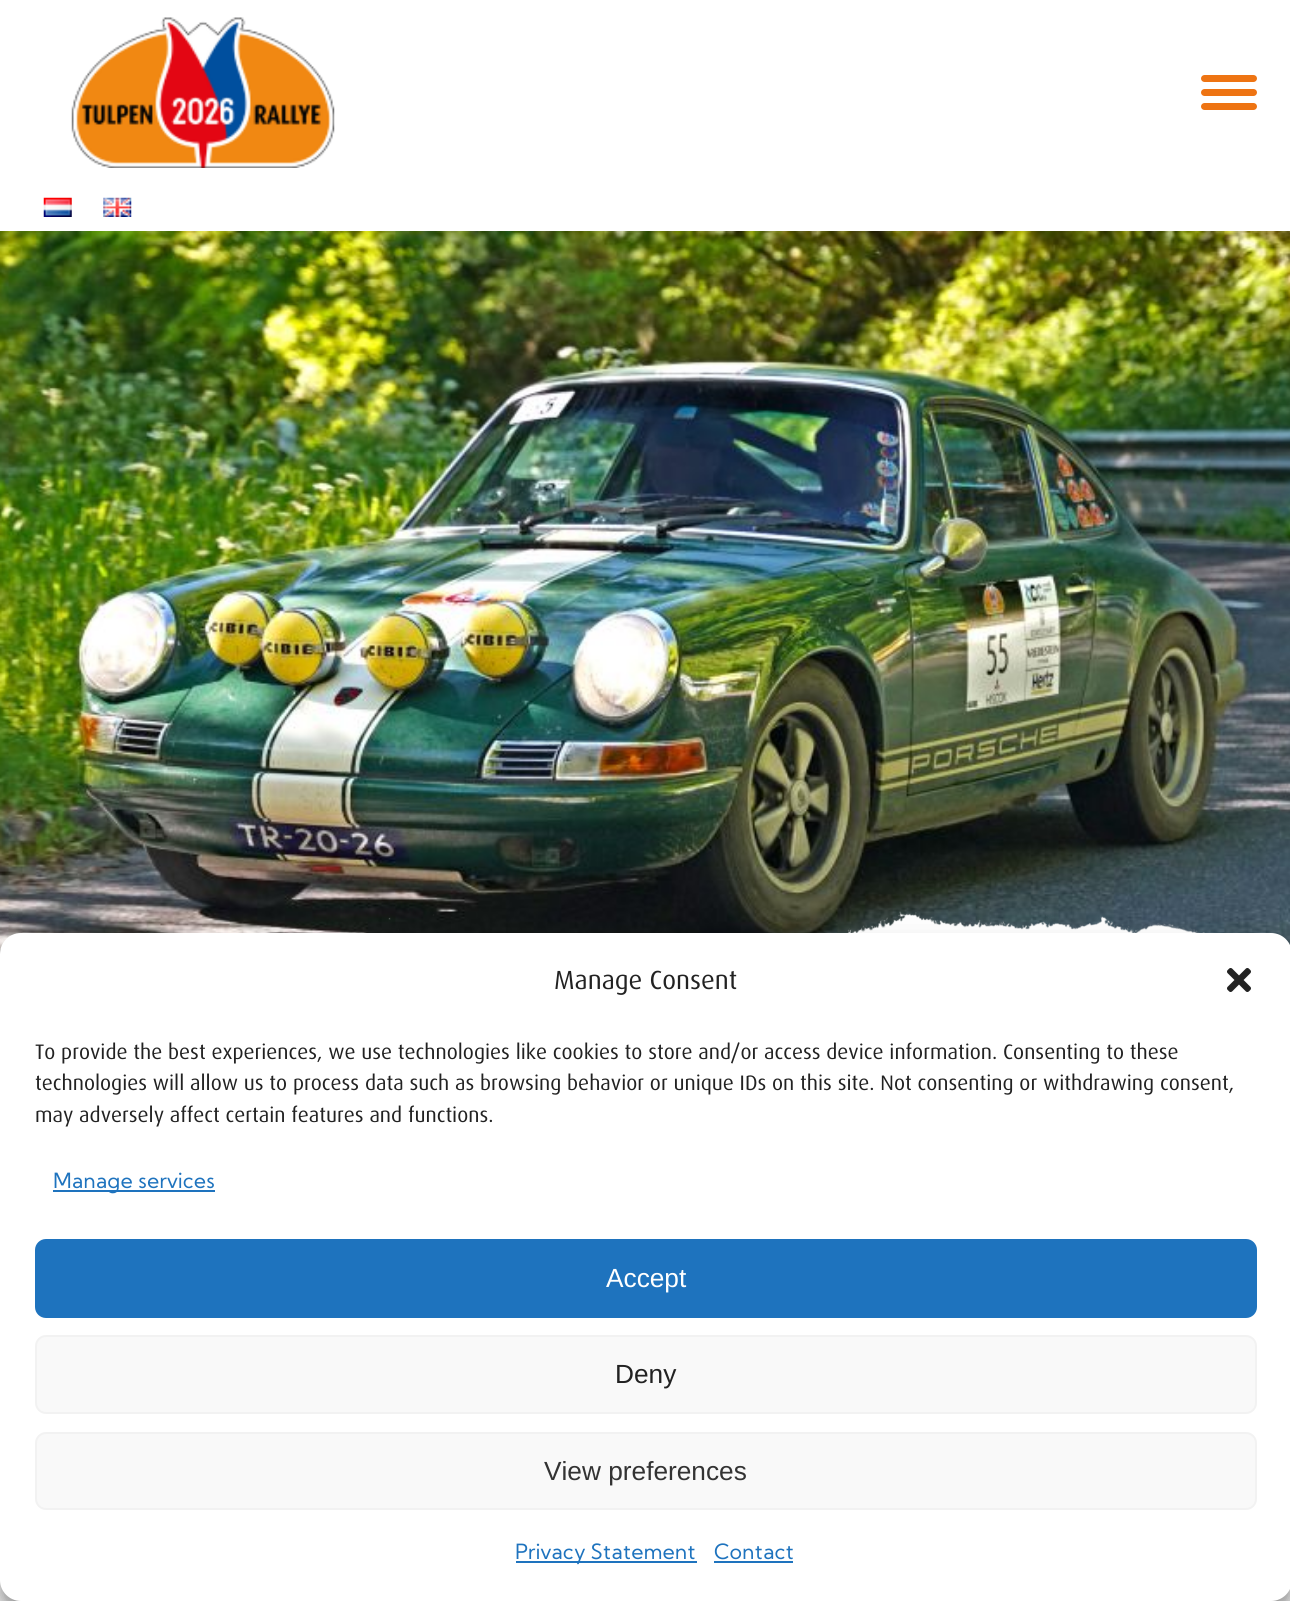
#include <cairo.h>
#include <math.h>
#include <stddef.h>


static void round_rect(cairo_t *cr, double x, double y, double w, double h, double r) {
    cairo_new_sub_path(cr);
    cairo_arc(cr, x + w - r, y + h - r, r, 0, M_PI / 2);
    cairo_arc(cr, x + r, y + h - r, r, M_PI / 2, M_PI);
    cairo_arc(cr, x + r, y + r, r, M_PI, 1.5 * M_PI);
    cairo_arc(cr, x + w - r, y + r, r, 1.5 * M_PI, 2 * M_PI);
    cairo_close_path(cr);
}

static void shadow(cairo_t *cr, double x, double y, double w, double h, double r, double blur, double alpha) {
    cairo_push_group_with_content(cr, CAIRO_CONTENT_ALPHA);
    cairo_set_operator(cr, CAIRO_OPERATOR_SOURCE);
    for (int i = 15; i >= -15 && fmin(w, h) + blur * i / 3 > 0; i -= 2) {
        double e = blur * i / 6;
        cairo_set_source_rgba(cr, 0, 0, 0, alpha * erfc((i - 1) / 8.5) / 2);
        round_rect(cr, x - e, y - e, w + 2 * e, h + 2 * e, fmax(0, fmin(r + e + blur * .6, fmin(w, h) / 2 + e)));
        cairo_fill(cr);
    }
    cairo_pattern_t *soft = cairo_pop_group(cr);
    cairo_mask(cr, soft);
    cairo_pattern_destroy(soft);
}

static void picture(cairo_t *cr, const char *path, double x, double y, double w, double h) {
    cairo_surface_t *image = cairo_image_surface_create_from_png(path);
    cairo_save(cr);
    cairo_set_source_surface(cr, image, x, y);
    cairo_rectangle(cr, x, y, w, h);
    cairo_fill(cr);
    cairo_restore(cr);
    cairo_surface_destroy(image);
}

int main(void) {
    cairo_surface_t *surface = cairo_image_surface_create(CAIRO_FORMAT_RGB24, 1290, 1601);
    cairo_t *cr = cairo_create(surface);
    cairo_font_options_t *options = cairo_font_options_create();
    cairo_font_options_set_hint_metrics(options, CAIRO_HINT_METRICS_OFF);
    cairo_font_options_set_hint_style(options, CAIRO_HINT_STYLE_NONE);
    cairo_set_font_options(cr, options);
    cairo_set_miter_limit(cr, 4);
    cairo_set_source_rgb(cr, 1, 1, 1);
    cairo_paint(cr);
    picture(cr, "img1.png", 71, 17, 264, 151);
    cairo_set_source_rgb(cr, 0.933, 0.455, 0.075);
    round_rect(cr, 1201, 75, 56, 7, 3.5);
    cairo_fill(cr);
    round_rect(cr, 1201, 89, 56, 7, 3.5);
    cairo_fill(cr);
    round_rect(cr, 1201, 103, 56, 7, 3.5);
    cairo_fill(cr);
    picture(cr, "img2.png", 43, 197, 29, 20);
    picture(cr, "img3.png", 103, 197, 29, 20);
    picture(cr, "img4.png", 0, 231, 1290, 723);
    picture(cr, "img5.png", 0, 911, 1205, 35);
    cairo_set_source_rgb(cr, 0.957, 0.957, 0.957);
    cairo_rectangle(cr, 0, 1580, 1290, 21);
    cairo_fill(cr);
    cairo_set_source_rgb(cr, 0, 0, 0);
    shadow(cr, 0, 943, 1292, 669, 21, 5, 0.23);
    shadow(cr, 0, 950, 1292, 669, 21, 17.5, 0.19);
    cairo_set_source_rgb(cr, 1, 1, 1);
    round_rect(cr, 0, 933, 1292, 668, 21);
    cairo_fill(cr);
    cairo_select_font_face(cr, "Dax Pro", CAIRO_FONT_SLANT_NORMAL, CAIRO_FONT_WEIGHT_NORMAL);
    cairo_set_font_size(cr, 26.25);
    cairo_set_source_rgb(cr, 0.133, 0.133, 0.133);
    cairo_move_to(cr, 554, 989);
    cairo_show_text(cr, "Manage Consent");
    picture(cr, "img6.png", 1227, 968, 24, 24);
    cairo_set_font_size(cr, 21);
    cairo_move_to(cr, 35, 1059);
    cairo_show_text(cr, "To provide the best experiences, we use technologies like cookies to store and/or access device information. Consenting to these");
    cairo_move_to(cr, 35, 1090);
    cairo_show_text(cr, "technologies will allow us to process data such as browsing behavior or unique IDs on this site. Not consenting or withdrawing consent,");
    cairo_move_to(cr, 35, 1122);
    cairo_show_text(cr, "may adversely affect certain features and functions.");
    cairo_set_source_rgb(cr, 0.118, 0.451, 0.745);
    cairo_rectangle(cr, 53, 1190, 162, 2);
    cairo_fill(cr);
    cairo_select_font_face(cr, "Kumbh Sans", CAIRO_FONT_SLANT_NORMAL, CAIRO_FONT_WEIGHT_NORMAL);
    cairo_move_to(cr, 53, 1188);
    cairo_show_text(cr, "Manage services");
    round_rect(cr, 36, 1240, 1220, 77, 10);
    cairo_fill_preserve(cr);
    cairo_stroke(cr);
    cairo_select_font_face(cr, "Liberation Sans", CAIRO_FONT_SLANT_NORMAL, CAIRO_FONT_WEIGHT_NORMAL);
    cairo_set_font_size(cr, 26.25);
    cairo_set_source_rgb(cr, 1, 1, 1);
    cairo_move_to(cr, 606, 1287);
    cairo_show_text(cr, "Accept");
    cairo_set_source_rgb(cr, 0.976, 0.976, 0.976);
    round_rect(cr, 36, 1336, 1220, 77, 10);
    cairo_fill_preserve(cr);
    cairo_set_source_rgb(cr, 0.949, 0.949, 0.949);
    cairo_stroke(cr);
    cairo_set_source_rgb(cr, 0.133, 0.133, 0.133);
    cairo_move_to(cr, 615, 1383);
    cairo_show_text(cr, "Deny");
    cairo_set_source_rgb(cr, 0.976, 0.976, 0.976);
    round_rect(cr, 36, 1433, 1220, 76, 10);
    cairo_fill_preserve(cr);
    cairo_set_source_rgb(cr, 0.949, 0.949, 0.949);
    cairo_stroke(cr);
    cairo_set_source_rgb(cr, 0.2, 0.2, 0.2);
    cairo_move_to(cr, 544, 1480);
    cairo_show_text(cr, "View preferences");
    cairo_set_source_rgb(cr, 0.118, 0.451, 0.745);
    cairo_rectangle(cr, 516, 1561, 181, 2);
    cairo_fill(cr);
    cairo_select_font_face(cr, "Kumbh Sans", CAIRO_FONT_SLANT_NORMAL, CAIRO_FONT_WEIGHT_NORMAL);
    cairo_set_font_size(cr, 21);
    cairo_move_to(cr, 515, 1559);
    cairo_show_text(cr, "Privacy Statement");
    cairo_move_to(cr, 714, 1559);
    cairo_show_text(cr, "Contact");
    cairo_rectangle(cr, 714, 1561, 79, 2);
    cairo_fill(cr);
    cairo_surface_write_to_png(surface, "page.png");
    cairo_font_options_destroy(options);
    cairo_destroy(cr);
    cairo_surface_destroy(surface);
    return 0;
}
